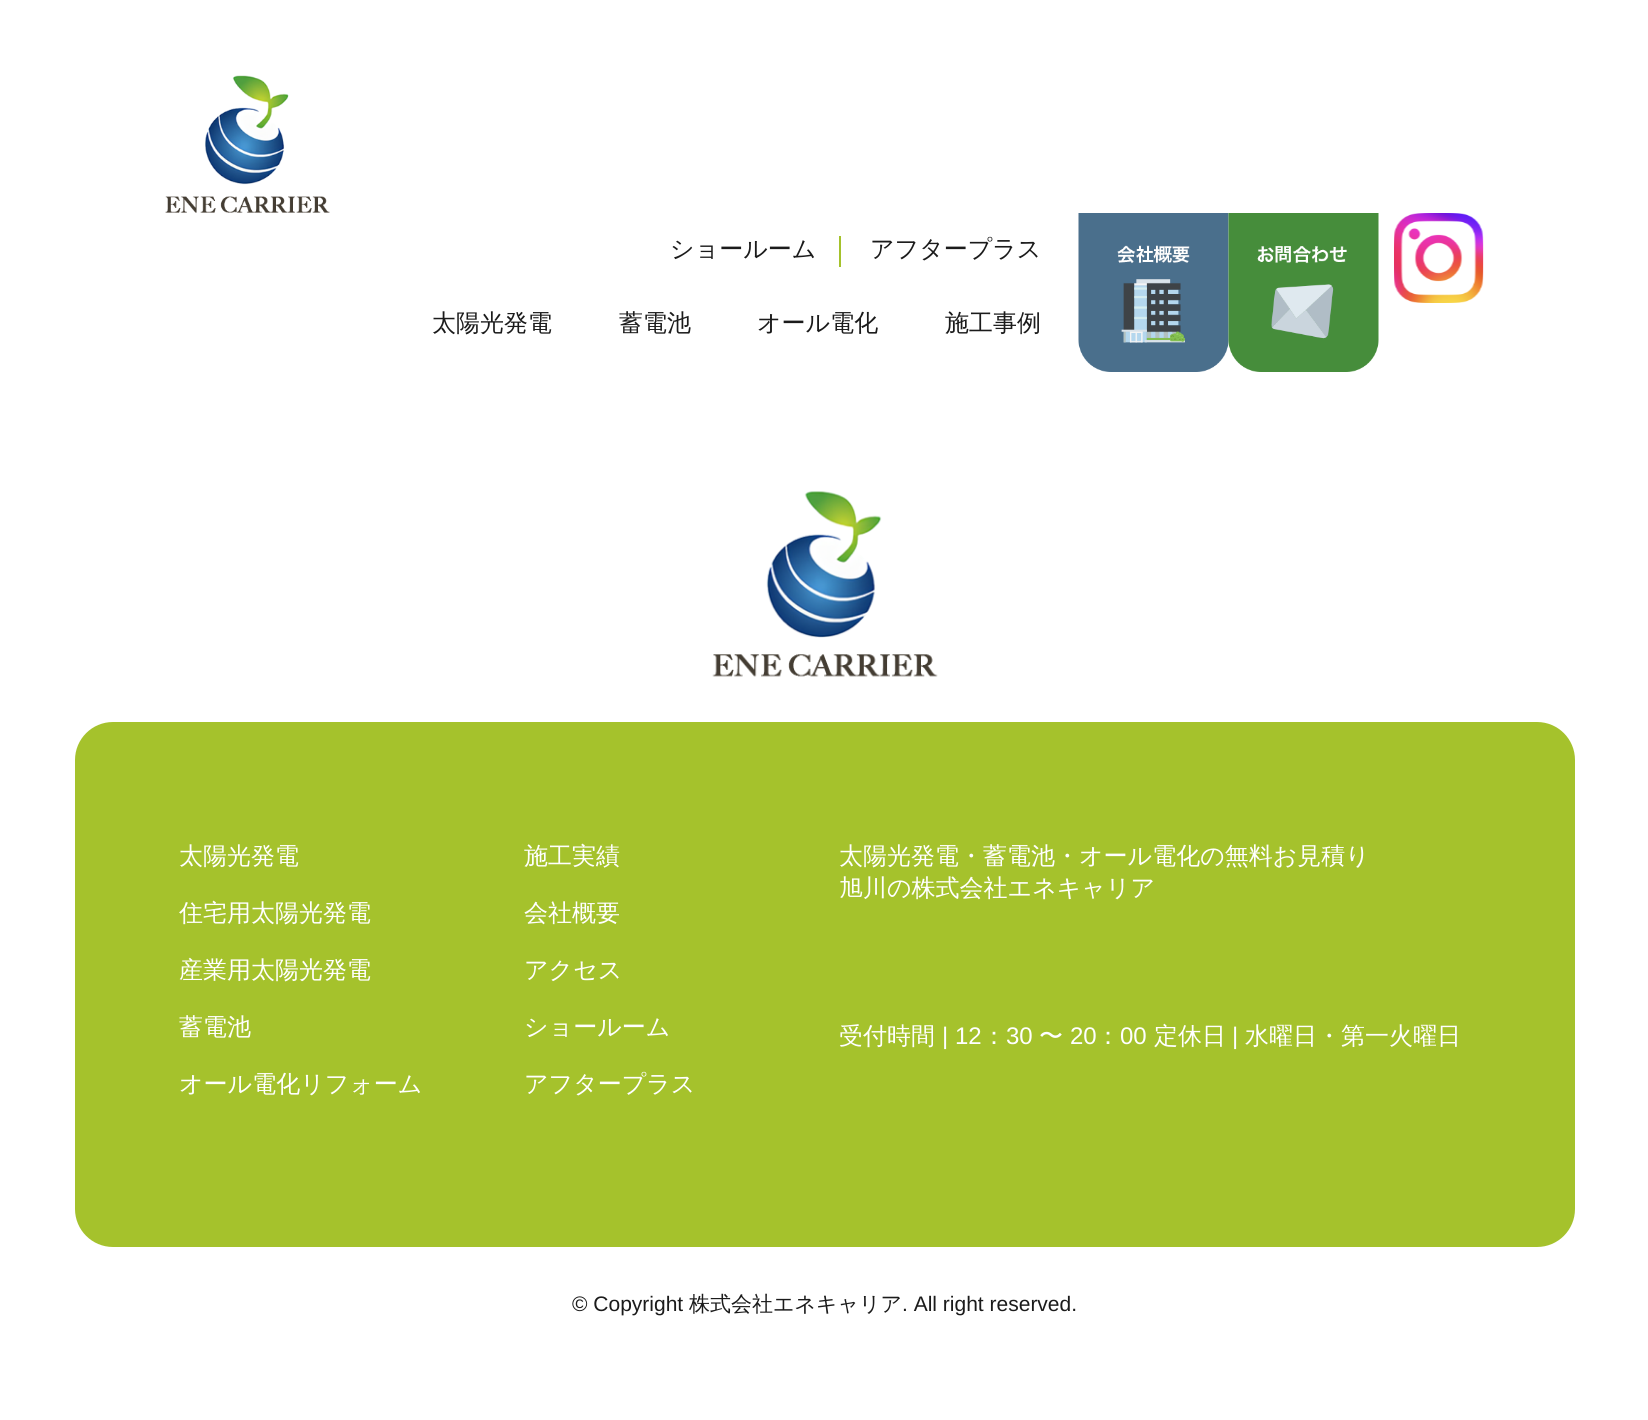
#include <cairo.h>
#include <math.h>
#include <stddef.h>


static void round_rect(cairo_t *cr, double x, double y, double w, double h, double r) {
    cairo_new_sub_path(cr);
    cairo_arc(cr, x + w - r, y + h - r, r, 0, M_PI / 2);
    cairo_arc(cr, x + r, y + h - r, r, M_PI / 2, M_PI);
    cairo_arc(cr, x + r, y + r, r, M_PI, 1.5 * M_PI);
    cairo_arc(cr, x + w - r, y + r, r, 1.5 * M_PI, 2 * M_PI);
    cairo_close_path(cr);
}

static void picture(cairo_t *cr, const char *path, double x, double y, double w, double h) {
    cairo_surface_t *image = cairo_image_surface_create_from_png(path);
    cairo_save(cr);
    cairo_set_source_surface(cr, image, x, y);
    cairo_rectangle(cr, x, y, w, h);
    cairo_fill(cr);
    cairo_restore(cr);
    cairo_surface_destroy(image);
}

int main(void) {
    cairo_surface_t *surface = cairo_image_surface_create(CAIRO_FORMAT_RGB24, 1648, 1420);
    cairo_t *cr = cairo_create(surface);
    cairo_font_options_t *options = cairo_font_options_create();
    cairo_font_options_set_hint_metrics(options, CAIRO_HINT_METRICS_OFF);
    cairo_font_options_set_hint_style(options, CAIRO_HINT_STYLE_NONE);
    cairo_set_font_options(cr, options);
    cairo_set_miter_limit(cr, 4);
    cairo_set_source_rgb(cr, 1, 1, 1);
    cairo_paint(cr);
    picture(cr, "img1.png", 165, 75, 165, 138);
    cairo_set_source_rgb(cr, 0.647, 0.761, 0.173);
    cairo_rectangle(cr, 839, 236, 2, 31);
    cairo_fill(cr);
    cairo_select_font_face(cr, "WenQuanYi Zen Hei Medium", CAIRO_FONT_SLANT_NORMAL, CAIRO_FONT_WEIGHT_NORMAL);
    cairo_set_font_size(cr, 24);
    cairo_set_source_rgb(cr, 0.106, 0.106, 0.106);
    cairo_move_to(cr, 670, 257);
    cairo_show_text(cr, "ショールーム");
    cairo_move_to(cr, 870, 257);
    cairo_show_text(cr, "アフタープラス");
    cairo_move_to(cr, 432, 331);
    cairo_show_text(cr, "太陽光発電");
    cairo_move_to(cr, 619, 331);
    cairo_show_text(cr, "蓄電池");
    cairo_move_to(cr, 757, 331);
    cairo_show_text(cr, "オール電化");
    cairo_move_to(cr, 945, 331);
    cairo_show_text(cr, "施工事例");
    picture(cr, "img2.png", 1078, 213, 151, 159);
    picture(cr, "img3.png", 1228, 213, 151, 159);
    picture(cr, "img4.png", 1394, 213, 90, 90);
    picture(cr, "img5.png", 712, 491, 226, 186);
    cairo_set_source_rgb(cr, 0.647, 0.761, 0.173);
    round_rect(cr, 75, 722, 1500, 525, 38);
    cairo_fill(cr);
    cairo_set_source_rgb(cr, 1, 1, 1);
    cairo_move_to(cr, 179, 864);
    cairo_show_text(cr, "太陽光発電");
    cairo_move_to(cr, 179, 921);
    cairo_show_text(cr, "住宅用太陽光発電");
    cairo_move_to(cr, 179, 978);
    cairo_show_text(cr, "産業用太陽光発電");
    cairo_move_to(cr, 179, 1035);
    cairo_show_text(cr, "蓄電池");
    cairo_move_to(cr, 179, 1092);
    cairo_show_text(cr, "オール電化リフォーム");
    cairo_move_to(cr, 524, 864);
    cairo_show_text(cr, "施工実績");
    cairo_move_to(cr, 524, 921);
    cairo_show_text(cr, "会社概要");
    cairo_move_to(cr, 524, 978);
    cairo_show_text(cr, "アクセス");
    cairo_move_to(cr, 524, 1035);
    cairo_show_text(cr, "ショールーム");
    cairo_move_to(cr, 524, 1092);
    cairo_show_text(cr, "アフタープラス");
    cairo_move_to(cr, 839, 864);
    cairo_show_text(cr, "太陽光発電・蓄電池・オール電化の無料お見積り");
    cairo_move_to(cr, 839, 896);
    cairo_show_text(cr, "旭川の株式会社エネキャリア");
    cairo_move_to(cr, 839, 1044);
    cairo_show_text(cr, "受付時間");
    cairo_select_font_face(cr, "Liberation Sans", CAIRO_FONT_SLANT_NORMAL, CAIRO_FONT_WEIGHT_NORMAL);
    cairo_move_to(cr, 942, 1044);
    cairo_show_text(cr, "| 12");
    cairo_select_font_face(cr, "WenQuanYi Zen Hei Medium", CAIRO_FONT_SLANT_NORMAL, CAIRO_FONT_WEIGHT_NORMAL);
    cairo_move_to(cr, 982, 1044);
    cairo_show_text(cr, "：");
    cairo_select_font_face(cr, "Liberation Sans", CAIRO_FONT_SLANT_NORMAL, CAIRO_FONT_WEIGHT_NORMAL);
    cairo_move_to(cr, 1006, 1044);
    cairo_show_text(cr, "30");
    cairo_select_font_face(cr, "WenQuanYi Zen Hei Medium", CAIRO_FONT_SLANT_NORMAL, CAIRO_FONT_WEIGHT_NORMAL);
    cairo_move_to(cr, 1039, 1044);
    cairo_show_text(cr, "〜");
    cairo_select_font_face(cr, "Liberation Sans", CAIRO_FONT_SLANT_NORMAL, CAIRO_FONT_WEIGHT_NORMAL);
    cairo_move_to(cr, 1070, 1044);
    cairo_show_text(cr, "20");
    cairo_select_font_face(cr, "WenQuanYi Zen Hei Medium", CAIRO_FONT_SLANT_NORMAL, CAIRO_FONT_WEIGHT_NORMAL);
    cairo_move_to(cr, 1096, 1044);
    cairo_show_text(cr, "：");
    cairo_select_font_face(cr, "Liberation Sans", CAIRO_FONT_SLANT_NORMAL, CAIRO_FONT_WEIGHT_NORMAL);
    cairo_move_to(cr, 1120, 1044);
    cairo_show_text(cr, "00");
    cairo_select_font_face(cr, "WenQuanYi Zen Hei Medium", CAIRO_FONT_SLANT_NORMAL, CAIRO_FONT_WEIGHT_NORMAL);
    cairo_move_to(cr, 1154, 1044);
    cairo_show_text(cr, "定休日");
    cairo_select_font_face(cr, "Liberation Sans", CAIRO_FONT_SLANT_NORMAL, CAIRO_FONT_WEIGHT_NORMAL);
    cairo_move_to(cr, 1232, 1044);
    cairo_show_text(cr, "|");
    cairo_select_font_face(cr, "WenQuanYi Zen Hei Medium", CAIRO_FONT_SLANT_NORMAL, CAIRO_FONT_WEIGHT_NORMAL);
    cairo_move_to(cr, 1245, 1044);
    cairo_show_text(cr, "水曜日・第一火曜日");
    cairo_select_font_face(cr, "Liberation Sans", CAIRO_FONT_SLANT_NORMAL, CAIRO_FONT_WEIGHT_NORMAL);
    cairo_set_font_size(cr, 21);
    cairo_set_source_rgb(cr, 0.106, 0.106, 0.106);
    cairo_move_to(cr, 572, 1311);
    cairo_show_text(cr, "© Copyright");
    cairo_select_font_face(cr, "WenQuanYi Zen Hei Medium", CAIRO_FONT_SLANT_NORMAL, CAIRO_FONT_WEIGHT_NORMAL);
    cairo_move_to(cr, 689, 1311);
    cairo_show_text(cr, "株式会社エネキャリア");
    cairo_select_font_face(cr, "Liberation Sans", CAIRO_FONT_SLANT_NORMAL, CAIRO_FONT_WEIGHT_NORMAL);
    cairo_move_to(cr, 902, 1311);
    cairo_show_text(cr, ". All right reserved.");
    cairo_surface_write_to_png(surface, "page.png");
    cairo_font_options_destroy(options);
    cairo_destroy(cr);
    cairo_surface_destroy(surface);
    return 0;
}
